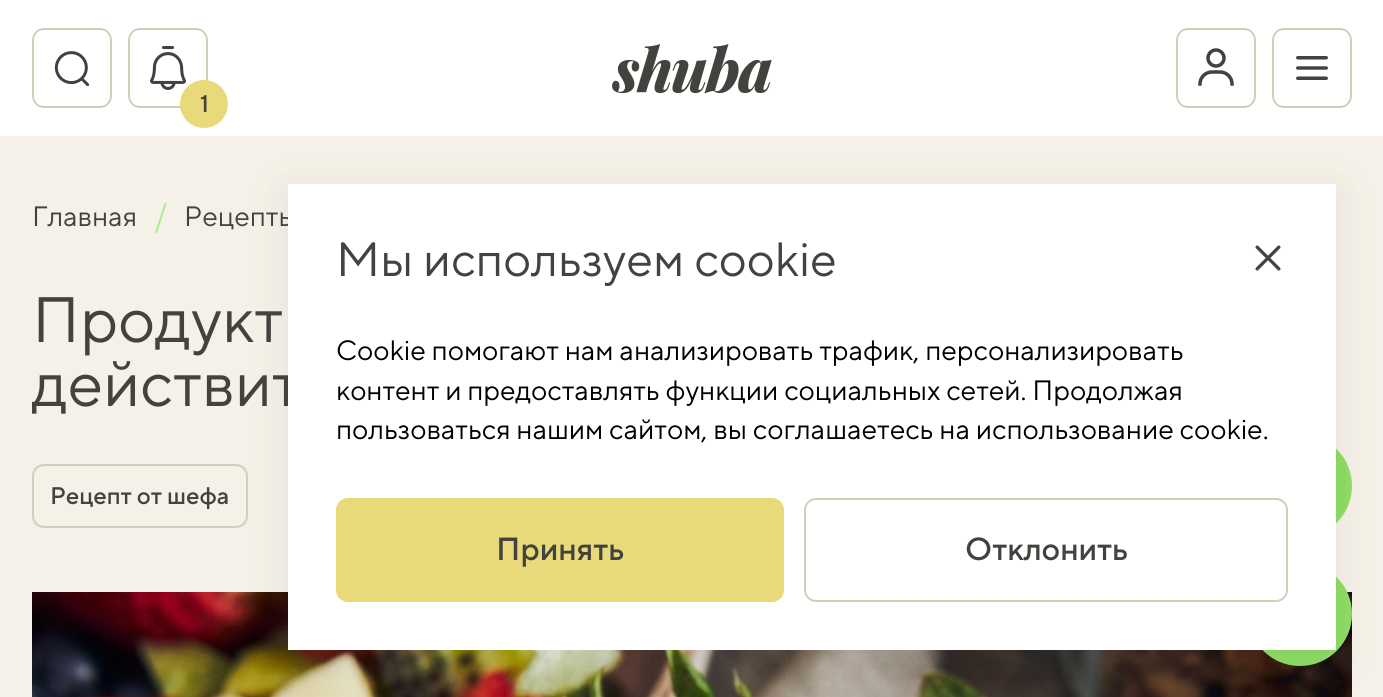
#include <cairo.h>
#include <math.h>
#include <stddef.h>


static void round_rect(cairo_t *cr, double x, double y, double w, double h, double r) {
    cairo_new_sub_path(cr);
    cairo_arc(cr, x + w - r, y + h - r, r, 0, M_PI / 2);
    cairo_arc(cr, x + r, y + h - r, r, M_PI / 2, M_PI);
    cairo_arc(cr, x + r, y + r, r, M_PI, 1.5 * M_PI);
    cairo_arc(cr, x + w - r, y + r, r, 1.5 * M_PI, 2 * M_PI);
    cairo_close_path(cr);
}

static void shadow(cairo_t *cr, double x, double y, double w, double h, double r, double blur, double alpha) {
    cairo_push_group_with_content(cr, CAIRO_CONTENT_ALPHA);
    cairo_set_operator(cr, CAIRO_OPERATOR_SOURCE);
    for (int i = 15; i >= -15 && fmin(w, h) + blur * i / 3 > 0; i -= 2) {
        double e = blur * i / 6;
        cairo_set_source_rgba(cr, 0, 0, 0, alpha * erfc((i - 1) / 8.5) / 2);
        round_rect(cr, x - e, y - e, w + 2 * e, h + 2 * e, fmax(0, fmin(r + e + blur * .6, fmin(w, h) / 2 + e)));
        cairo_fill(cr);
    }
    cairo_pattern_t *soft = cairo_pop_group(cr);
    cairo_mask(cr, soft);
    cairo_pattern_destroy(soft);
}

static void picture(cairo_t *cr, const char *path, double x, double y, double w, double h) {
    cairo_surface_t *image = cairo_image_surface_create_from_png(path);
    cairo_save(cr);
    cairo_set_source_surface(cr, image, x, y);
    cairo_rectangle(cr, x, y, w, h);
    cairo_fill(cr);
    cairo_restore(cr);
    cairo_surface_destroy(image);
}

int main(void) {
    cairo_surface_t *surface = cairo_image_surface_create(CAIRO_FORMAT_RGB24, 1383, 697);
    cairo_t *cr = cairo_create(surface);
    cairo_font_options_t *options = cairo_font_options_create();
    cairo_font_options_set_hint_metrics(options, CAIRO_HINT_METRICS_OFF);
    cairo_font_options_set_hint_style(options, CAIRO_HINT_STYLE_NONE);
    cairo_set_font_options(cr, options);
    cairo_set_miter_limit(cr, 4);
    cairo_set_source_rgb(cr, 0.961, 0.945, 0.91);
    cairo_paint(cr);
    cairo_set_source_rgb(cr, 1, 1, 1);
    cairo_rectangle(cr, 0, 0, 1383, 136);
    cairo_fill(cr);
    picture(cr, "img1.png", 612, 44, 160, 50);
    round_rect(cr, 1177, 29, 78, 78, 11);
    cairo_set_source_rgb(cr, 0.816, 0.812, 0.733);
    cairo_stroke(cr);
    picture(cr, "img2.png", 1198, 48, 36, 38);
    round_rect(cr, 1273, 29, 78, 78, 11);
    cairo_stroke(cr);
    picture(cr, "img3.png", 1296, 56, 32, 24);
    round_rect(cr, 33, 29, 78, 78, 11);
    cairo_stroke(cr);
    picture(cr, "img4.png", 54, 51, 36, 36);
    round_rect(cr, 129, 29, 78, 78, 11);
    cairo_stroke(cr);
    picture(cr, "img5.png", 150, 46, 36, 44);
    cairo_set_source_rgb(cr, 0.91, 0.851, 0.478);
    cairo_arc(cr, 204, 104, 23, 0, 2 * M_PI);
    cairo_fill_preserve(cr);
    cairo_stroke(cr);
    cairo_select_font_face(cr, "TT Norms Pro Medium", CAIRO_FONT_SLANT_NORMAL, CAIRO_FONT_WEIGHT_NORMAL);
    cairo_set_font_size(cr, 24);
    cairo_set_source_rgb(cr, 0.267, 0.259, 0.243);
    cairo_move_to(cr, 200, 112);
    cairo_show_text(cr, "1");
    cairo_select_font_face(cr, "TT Norms Pro", CAIRO_FONT_SLANT_NORMAL, CAIRO_FONT_WEIGHT_NORMAL);
    cairo_set_font_size(cr, 28);
    cairo_move_to(cr, 32, 226);
    cairo_show_text(cr, "Главная");
    cairo_set_font_size(cr, 32);
    cairo_set_source_rgb(cr, 0.671, 0.918, 0.545);
    cairo_move_to(cr, 155, 226);
    cairo_show_text(cr, "/");
    cairo_set_font_size(cr, 28);
    cairo_set_source_rgb(cr, 0.267, 0.259, 0.243);
    cairo_move_to(cr, 184, 226);
    cairo_show_text(cr, "Рецепты");
    cairo_set_font_size(cr, 64);
    cairo_move_to(cr, 32, 342);
    cairo_show_text(cr, "Продукт");
    cairo_move_to(cr, 32, 406);
    cairo_show_text(cr, "действит");
    round_rect(cr, 33, 465, 214, 62, 11);
    cairo_set_source_rgb(cr, 0.816, 0.812, 0.733);
    cairo_stroke(cr);
    cairo_select_font_face(cr, "TT Norms Pro Medium", CAIRO_FONT_SLANT_NORMAL, CAIRO_FONT_WEIGHT_NORMAL);
    cairo_set_font_size(cr, 24);
    cairo_set_source_rgb(cr, 0.267, 0.259, 0.243);
    cairo_move_to(cr, 50, 504);
    cairo_show_text(cr, "Рецепт от шефа");
    picture(cr, "img6.png", 32, 592, 1320, 105);
    cairo_set_source_rgb(cr, 0.557, 0.867, 0.396);
    cairo_arc(cr, 1300, 486, 51, 0, 2 * M_PI);
    cairo_fill_preserve(cr);
    cairo_stroke(cr);
    cairo_arc(cr, 1300, 614, 51, 0, 2 * M_PI);
    cairo_fill_preserve(cr);
    cairo_stroke(cr);
    cairo_set_source_rgb(cr, 0.267, 0.259, 0.243);
    shadow(cr, 288, 192, 1048, 466, 0, 20, 0.1);
    cairo_set_source_rgb(cr, 1, 1, 1);
    cairo_rectangle(cr, 288, 184, 1048, 466);
    cairo_fill(cr);
    cairo_select_font_face(cr, "TT Norms Pro", CAIRO_FONT_SLANT_NORMAL, CAIRO_FONT_WEIGHT_NORMAL);
    cairo_set_font_size(cr, 48);
    cairo_set_source_rgb(cr, 0.267, 0.259, 0.243);
    cairo_move_to(cr, 336, 276);
    cairo_show_text(cr, "Мы используем cookie");
    picture(cr, "img7.png", 1255, 245, 26, 26);
    cairo_set_font_size(cr, 28);
    cairo_set_source_rgb(cr, 0, 0, 0);
    cairo_move_to(cr, 336, 360);
    cairo_show_text(cr, "Cookie помогают нам анализировать трафик, персонализировать");
    cairo_move_to(cr, 336, 400);
    cairo_show_text(cr, "контент и предоставлять функции социальных сетей. Продолжая");
    cairo_move_to(cr, 336, 439);
    cairo_show_text(cr, "пользоваться нашим сайтом, вы соглашаетесь на использование cookie.");
    cairo_set_source_rgb(cr, 0.91, 0.851, 0.478);
    round_rect(cr, 337, 499, 446, 102, 11);
    cairo_fill_preserve(cr);
    cairo_stroke(cr);
    cairo_select_font_face(cr, "TT Norms Pro Medium", CAIRO_FONT_SLANT_NORMAL, CAIRO_FONT_WEIGHT_NORMAL);
    cairo_set_font_size(cr, 32);
    cairo_set_source_rgb(cr, 0.267, 0.259, 0.243);
    cairo_move_to(cr, 496, 560);
    cairo_show_text(cr, "Принять");
    round_rect(cr, 805, 499, 482, 102, 11);
    cairo_set_source_rgb(cr, 0.816, 0.812, 0.733);
    cairo_stroke(cr);
    cairo_set_source_rgb(cr, 0.267, 0.259, 0.243);
    cairo_move_to(cr, 965, 560);
    cairo_show_text(cr, "Отклонить");
    cairo_surface_write_to_png(surface, "page.png");
    cairo_font_options_destroy(options);
    cairo_destroy(cr);
    cairo_surface_destroy(surface);
    return 0;
}
